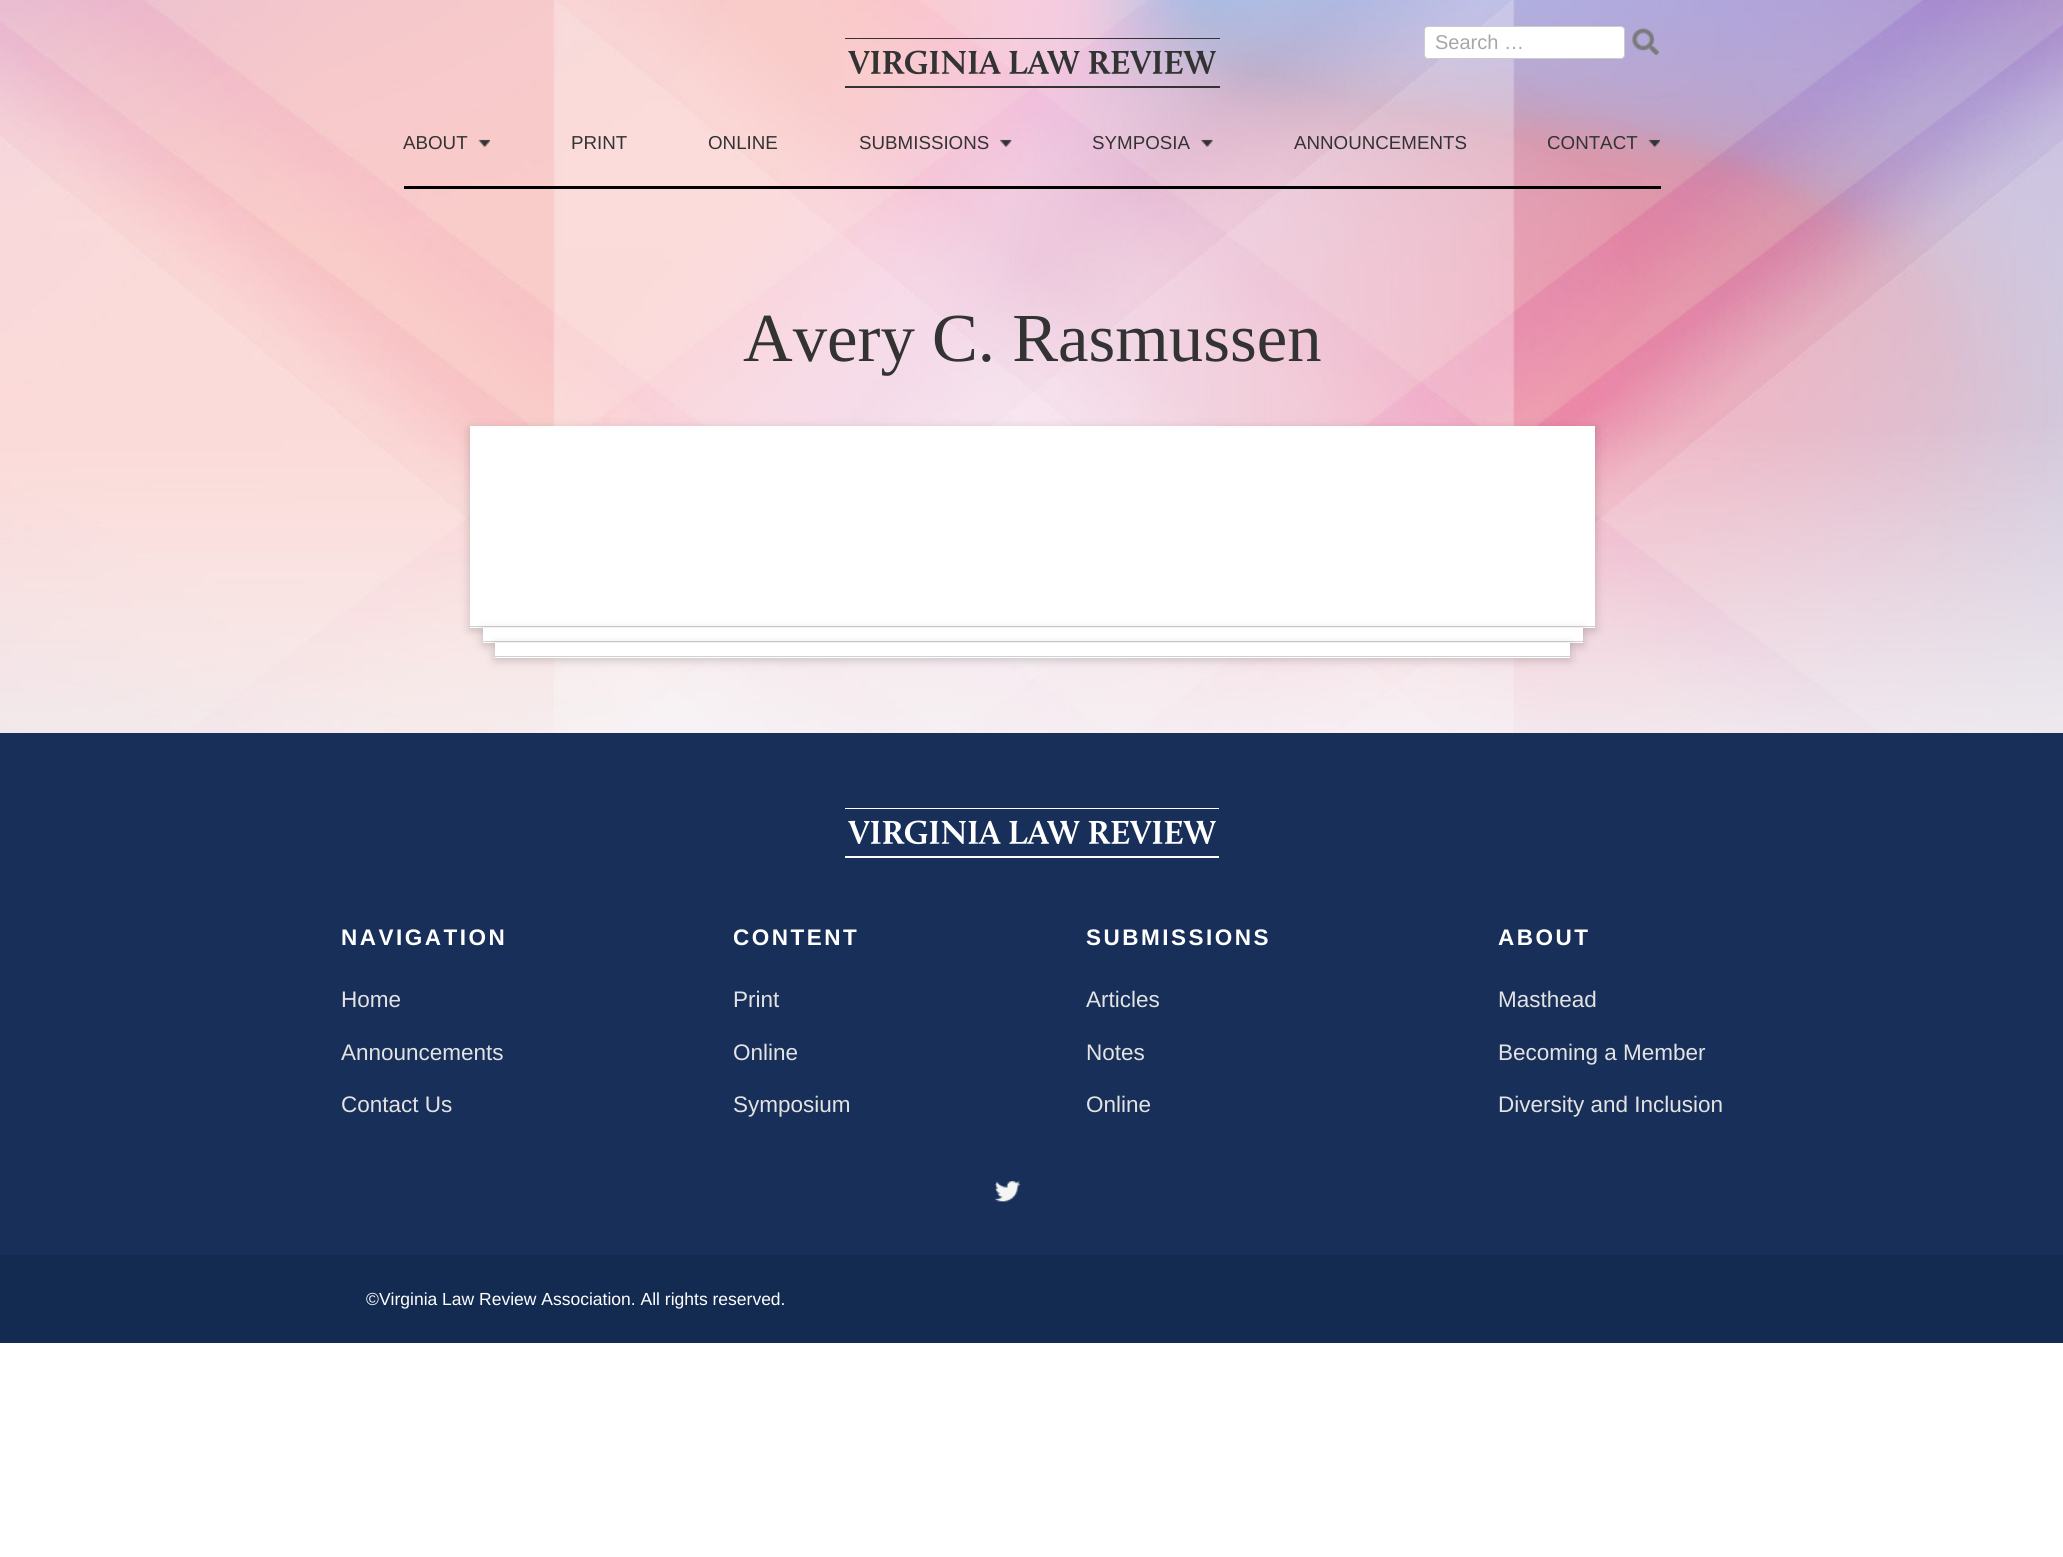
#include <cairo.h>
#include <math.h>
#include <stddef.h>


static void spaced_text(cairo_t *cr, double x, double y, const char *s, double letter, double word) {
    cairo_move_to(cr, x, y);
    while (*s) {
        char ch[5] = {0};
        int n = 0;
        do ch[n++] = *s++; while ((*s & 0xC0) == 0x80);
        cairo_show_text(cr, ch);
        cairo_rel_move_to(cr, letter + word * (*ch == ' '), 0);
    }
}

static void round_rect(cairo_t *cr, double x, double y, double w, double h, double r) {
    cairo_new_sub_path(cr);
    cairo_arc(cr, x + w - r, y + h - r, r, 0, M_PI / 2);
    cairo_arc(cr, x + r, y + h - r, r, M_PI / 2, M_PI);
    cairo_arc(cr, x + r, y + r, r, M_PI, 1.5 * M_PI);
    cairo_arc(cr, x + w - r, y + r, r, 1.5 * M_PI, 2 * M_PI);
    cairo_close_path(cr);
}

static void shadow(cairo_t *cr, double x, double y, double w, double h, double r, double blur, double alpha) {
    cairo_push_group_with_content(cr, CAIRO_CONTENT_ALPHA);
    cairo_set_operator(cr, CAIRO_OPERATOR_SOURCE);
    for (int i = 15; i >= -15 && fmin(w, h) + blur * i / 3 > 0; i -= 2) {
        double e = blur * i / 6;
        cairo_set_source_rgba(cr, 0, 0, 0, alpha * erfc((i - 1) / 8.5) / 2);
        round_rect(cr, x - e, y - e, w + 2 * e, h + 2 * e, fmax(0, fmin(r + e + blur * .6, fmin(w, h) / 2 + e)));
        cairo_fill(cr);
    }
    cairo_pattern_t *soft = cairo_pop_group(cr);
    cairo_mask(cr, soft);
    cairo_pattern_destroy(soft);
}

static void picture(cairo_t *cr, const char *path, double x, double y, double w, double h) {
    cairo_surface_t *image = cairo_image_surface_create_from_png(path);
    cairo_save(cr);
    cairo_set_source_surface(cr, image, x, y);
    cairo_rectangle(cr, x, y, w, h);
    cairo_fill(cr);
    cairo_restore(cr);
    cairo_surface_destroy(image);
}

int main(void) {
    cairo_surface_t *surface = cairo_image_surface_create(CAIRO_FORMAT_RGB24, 2063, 1557);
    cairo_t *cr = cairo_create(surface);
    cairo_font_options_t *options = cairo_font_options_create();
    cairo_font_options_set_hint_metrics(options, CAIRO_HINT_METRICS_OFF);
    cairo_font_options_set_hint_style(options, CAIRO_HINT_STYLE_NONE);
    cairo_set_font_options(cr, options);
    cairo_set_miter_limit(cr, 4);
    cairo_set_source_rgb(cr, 1, 1, 1);
    cairo_paint(cr);
    picture(cr, "img1.png", 0, 0, 2063, 733);
    picture(cr, "img2.png", 845, 38, 375, 50);
    cairo_set_source_rgb(cr, 1, 1, 1);
    round_rect(cr, 1424.5, 26.5, 200, 32, 3.5);
    cairo_fill_preserve(cr);
    cairo_set_source_rgb(cr, 0.8, 0.8, 0.8);
    cairo_set_line_width(cr, 1);
    cairo_stroke(cr);
    cairo_select_font_face(cr, "Liberation Sans", CAIRO_FONT_SLANT_NORMAL, CAIRO_FONT_WEIGHT_NORMAL);
    cairo_set_font_size(cr, 20);
    cairo_set_source_rgb(cr, 0.655, 0.655, 0.655);
    cairo_move_to(cr, 1435, 49);
    cairo_show_text(cr, "Search …");
    picture(cr, "img3.png", 1632, 28, 27, 27);
    cairo_set_source_rgb(cr, 0, 0, 0);
    cairo_rectangle(cr, 404, 186, 1257, 3);
    cairo_fill(cr);
    cairo_set_font_size(cr, 18.75);
    cairo_set_source_rgb(cr, 0.2, 0.2, 0.2);
    cairo_move_to(cr, 403, 149);
    cairo_show_text(cr, "ABOUT");
    picture(cr, "img4.png", 478, 139, 12, 9);
    cairo_move_to(cr, 571, 149);
    cairo_show_text(cr, "PRINT");
    cairo_move_to(cr, 708, 149);
    cairo_show_text(cr, "ONLINE");
    cairo_move_to(cr, 859, 149);
    cairo_show_text(cr, "SUBMISSIONS");
    picture(cr, "img5.png", 1000, 139, 12, 9);
    cairo_move_to(cr, 1092, 149);
    cairo_show_text(cr, "SYMPOSIA");
    picture(cr, "img6.png", 1201, 139, 12, 9);
    cairo_move_to(cr, 1294, 149);
    cairo_show_text(cr, "ANNOUNCEMENTS");
    cairo_move_to(cr, 1547, 149);
    cairo_show_text(cr, "CONTACT");
    picture(cr, "img7.png", 1648, 139, 12, 9);
    cairo_select_font_face(cr, "Liberation Serif", CAIRO_FONT_SLANT_NORMAL, CAIRO_FONT_WEIGHT_NORMAL);
    cairo_set_font_size(cr, 68.75);
    cairo_move_to(cr, 743, 361);
    cairo_show_text(cr, "Avery C. Rasmussen");
    cairo_set_source_rgb(cr, 0, 0, 0);
    shadow(cr, 470, 429, 1125, 201, 0, 5, 0.2);
    cairo_set_source_rgb(cr, 1, 1, 1);
    cairo_rectangle(cr, 470, 426, 1125, 202);
    cairo_fill(cr);
    cairo_set_source_rgb(cr, 0.816, 0.816, 0.816);
    cairo_rectangle(cr, 470, 626, 1125, 1);
    cairo_fill(cr);
    cairo_set_source_rgb(cr, 0, 0, 0);
    shadow(cr, 483, 630, 1100, 15, 0, 5, 0.2);
    cairo_set_source_rgb(cr, 1, 1, 1);
    cairo_rectangle(cr, 483, 628, 1100, 15);
    cairo_fill(cr);
    cairo_set_source_rgb(cr, 0.816, 0.816, 0.816);
    cairo_rectangle(cr, 483, 641, 1100, 1);
    cairo_fill(cr);
    cairo_set_source_rgb(cr, 0, 0, 0);
    shadow(cr, 495, 645, 1075, 15, 0, 5, 0.2);
    cairo_set_source_rgb(cr, 1, 1, 1);
    cairo_rectangle(cr, 495, 643, 1075, 15);
    cairo_fill(cr);
    cairo_set_source_rgb(cr, 0.816, 0.816, 0.816);
    cairo_rectangle(cr, 495, 656, 1075, 1);
    cairo_fill(cr);
    cairo_set_source_rgb(cr, 0.094, 0.188, 0.349);
    cairo_rectangle(cr, 0, 733, 2063, 522);
    cairo_fill(cr);
    picture(cr, "img8.png", 845, 808, 374, 50);
    cairo_select_font_face(cr, "Liberation Sans", CAIRO_FONT_SLANT_NORMAL, CAIRO_FONT_WEIGHT_BOLD);
    cairo_set_font_size(cr, 22.5);
    cairo_set_source_rgb(cr, 1, 1, 1);
    spaced_text(cr, 341, 945, "NAVIGATION", 2.5, 0);
    cairo_select_font_face(cr, "Liberation Sans", CAIRO_FONT_SLANT_NORMAL, CAIRO_FONT_WEIGHT_NORMAL);
    cairo_set_source_rgb(cr, 0.89, 0.89, 0.89);
    cairo_move_to(cr, 341, 1007);
    cairo_show_text(cr, "Home");
    cairo_move_to(cr, 341, 1060);
    cairo_show_text(cr, "Announcements");
    cairo_move_to(cr, 341, 1112);
    cairo_show_text(cr, "Contact Us");
    cairo_select_font_face(cr, "Liberation Sans", CAIRO_FONT_SLANT_NORMAL, CAIRO_FONT_WEIGHT_BOLD);
    cairo_set_source_rgb(cr, 1, 1, 1);
    spaced_text(cr, 733, 945, "CONTENT", 2.5, 0);
    cairo_select_font_face(cr, "Liberation Sans", CAIRO_FONT_SLANT_NORMAL, CAIRO_FONT_WEIGHT_NORMAL);
    cairo_set_source_rgb(cr, 0.89, 0.89, 0.89);
    cairo_move_to(cr, 733, 1007);
    cairo_show_text(cr, "Print");
    cairo_move_to(cr, 733, 1060);
    cairo_show_text(cr, "Online");
    cairo_move_to(cr, 733, 1112);
    cairo_show_text(cr, "Symposium");
    cairo_select_font_face(cr, "Liberation Sans", CAIRO_FONT_SLANT_NORMAL, CAIRO_FONT_WEIGHT_BOLD);
    cairo_set_source_rgb(cr, 1, 1, 1);
    spaced_text(cr, 1086, 945, "SUBMISSIONS", 2.5, 0);
    cairo_select_font_face(cr, "Liberation Sans", CAIRO_FONT_SLANT_NORMAL, CAIRO_FONT_WEIGHT_NORMAL);
    cairo_set_source_rgb(cr, 0.89, 0.89, 0.89);
    cairo_move_to(cr, 1086, 1007);
    cairo_show_text(cr, "Articles");
    cairo_move_to(cr, 1086, 1060);
    cairo_show_text(cr, "Notes");
    cairo_move_to(cr, 1086, 1112);
    cairo_show_text(cr, "Online");
    cairo_select_font_face(cr, "Liberation Sans", CAIRO_FONT_SLANT_NORMAL, CAIRO_FONT_WEIGHT_BOLD);
    cairo_set_source_rgb(cr, 1, 1, 1);
    spaced_text(cr, 1498, 945, "ABOUT", 2.5, 0);
    cairo_select_font_face(cr, "Liberation Sans", CAIRO_FONT_SLANT_NORMAL, CAIRO_FONT_WEIGHT_NORMAL);
    cairo_set_source_rgb(cr, 0.89, 0.89, 0.89);
    cairo_move_to(cr, 1498, 1007);
    cairo_show_text(cr, "Masthead");
    cairo_move_to(cr, 1498, 1060);
    cairo_show_text(cr, "Becoming a Member");
    cairo_move_to(cr, 1498, 1112);
    cairo_show_text(cr, "Diversity and Inclusion");
    picture(cr, "img9.png", 995, 1181, 26, 21);
    cairo_set_source_rgb(cr, 0.082, 0.169, 0.318);
    cairo_rectangle(cr, 0, 1255, 2063, 88);
    cairo_fill(cr);
    cairo_set_font_size(cr, 17.5);
    cairo_set_source_rgb(cr, 1, 1, 1);
    cairo_move_to(cr, 366, 1305);
    cairo_show_text(cr, "©Virginia Law Review Association. All rights reserved.");
    cairo_surface_write_to_png(surface, "page.png");
    cairo_font_options_destroy(options);
    cairo_destroy(cr);
    cairo_surface_destroy(surface);
    return 0;
}
